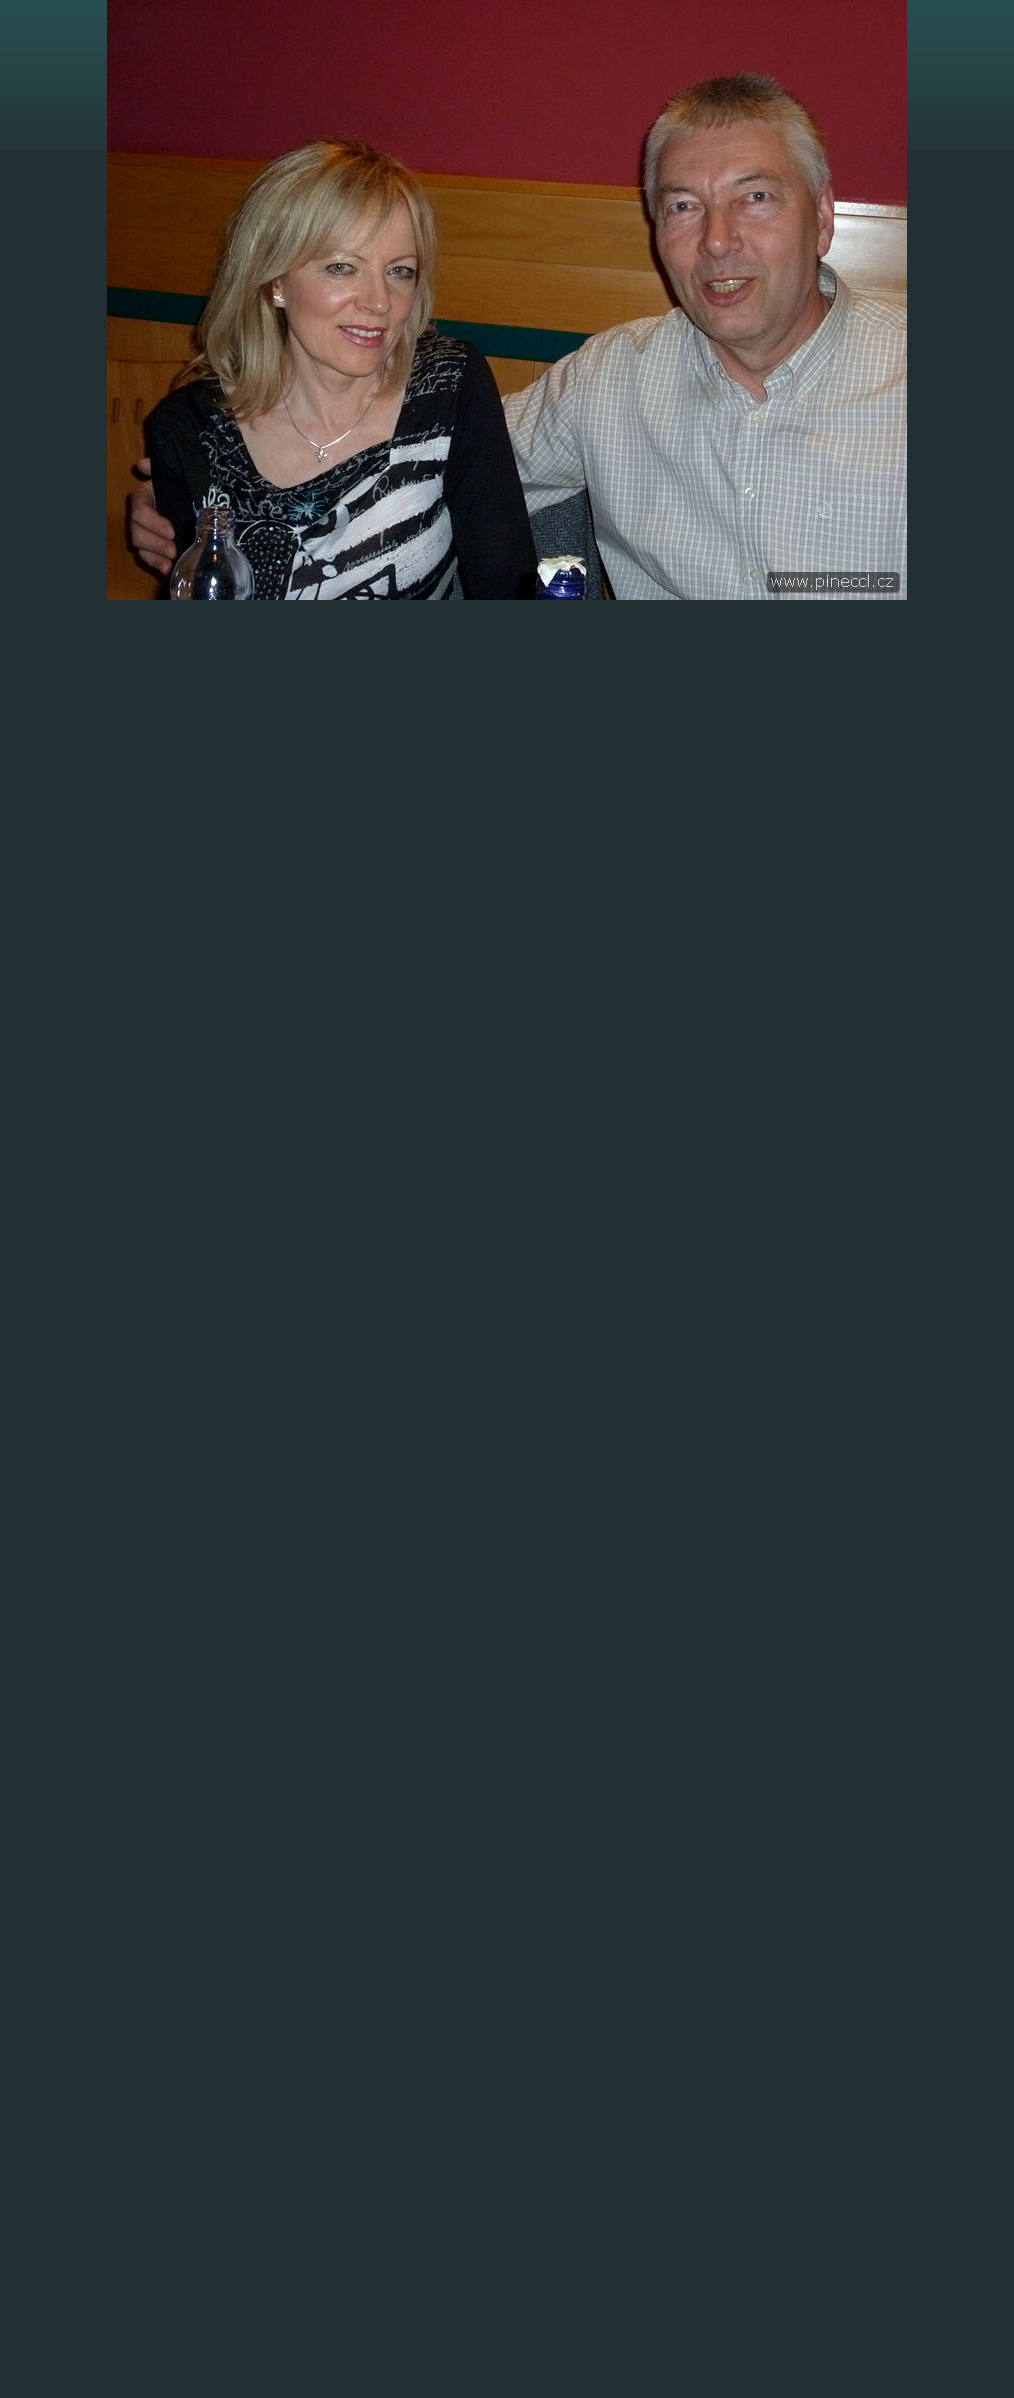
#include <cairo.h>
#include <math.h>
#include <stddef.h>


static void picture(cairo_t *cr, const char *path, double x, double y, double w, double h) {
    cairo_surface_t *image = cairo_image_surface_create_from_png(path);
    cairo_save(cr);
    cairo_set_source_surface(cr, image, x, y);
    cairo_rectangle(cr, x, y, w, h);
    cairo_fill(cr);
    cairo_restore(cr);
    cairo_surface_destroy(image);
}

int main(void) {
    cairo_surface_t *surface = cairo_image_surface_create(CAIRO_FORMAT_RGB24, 1014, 2398);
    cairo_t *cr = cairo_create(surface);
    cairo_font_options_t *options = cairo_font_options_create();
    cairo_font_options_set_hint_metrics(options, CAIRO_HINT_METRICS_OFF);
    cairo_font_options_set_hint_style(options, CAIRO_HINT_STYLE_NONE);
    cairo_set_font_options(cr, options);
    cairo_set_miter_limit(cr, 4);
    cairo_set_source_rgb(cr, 0.133, 0.188, 0.204);
    cairo_paint(cr);
    picture(cr, "img1.png", 0, 0, 1014, 150);
    picture(cr, "img2.png", 107, 0, 800, 600);
    cairo_surface_write_to_png(surface, "page.png");
    cairo_font_options_destroy(options);
    cairo_destroy(cr);
    cairo_surface_destroy(surface);
    return 0;
}
